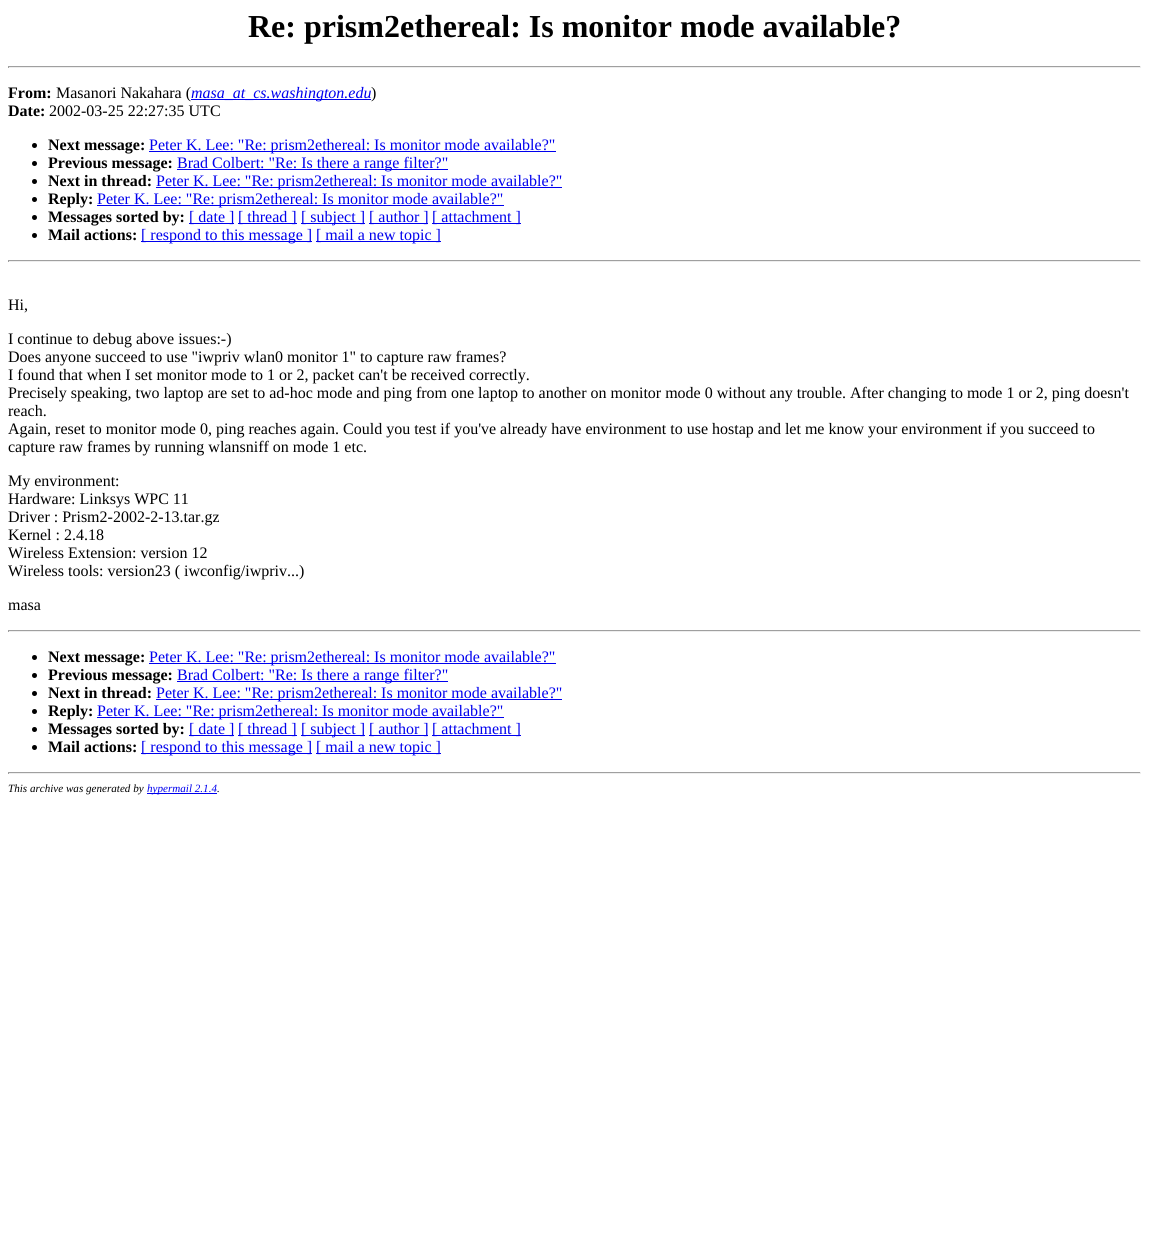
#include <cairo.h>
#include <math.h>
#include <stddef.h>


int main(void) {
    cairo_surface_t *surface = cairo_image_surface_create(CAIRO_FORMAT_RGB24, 1149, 1236);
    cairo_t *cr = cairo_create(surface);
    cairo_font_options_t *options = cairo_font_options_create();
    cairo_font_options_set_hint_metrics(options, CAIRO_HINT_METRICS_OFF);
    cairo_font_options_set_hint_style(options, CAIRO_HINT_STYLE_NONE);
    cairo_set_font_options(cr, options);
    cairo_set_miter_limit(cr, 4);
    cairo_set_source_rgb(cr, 1, 1, 1);
    cairo_paint(cr);
    cairo_select_font_face(cr, "Liberation Serif", CAIRO_FONT_SLANT_NORMAL, CAIRO_FONT_WEIGHT_BOLD);
    cairo_set_font_size(cr, 32);
    cairo_set_source_rgb(cr, 0, 0, 0);
    cairo_move_to(cr, 248, 37);
    cairo_show_text(cr, "Re: prism2ethereal: Is monitor mode available?");
    cairo_set_source_rgb(cr, 0.624, 0.624, 0.624);
    cairo_rectangle(cr, 8, 66, 1133, 1);
    cairo_fill(cr);
    cairo_set_source_rgb(cr, 0.933, 0.933, 0.933);
    cairo_rectangle(cr, 1140, 66, 1, 2);
    cairo_fill(cr);
    cairo_rectangle(cr, 8, 67, 1133, 1);
    cairo_fill(cr);
    cairo_set_source_rgb(cr, 0.624, 0.624, 0.624);
    cairo_rectangle(cr, 8, 66, 1, 2);
    cairo_fill(cr);
    cairo_set_font_size(cr, 16);
    cairo_set_source_rgb(cr, 0, 0, 0);
    cairo_move_to(cr, 8, 98);
    cairo_show_text(cr, "From:");
    cairo_select_font_face(cr, "Liberation Serif", CAIRO_FONT_SLANT_NORMAL, CAIRO_FONT_WEIGHT_NORMAL);
    cairo_move_to(cr, 56, 98);
    cairo_show_text(cr, "Masanori Nakahara (");
    cairo_set_source_rgb(cr, 0, 0, 0.933);
    cairo_rectangle(cr, 191, 99, 180, 1);
    cairo_fill(cr);
    cairo_select_font_face(cr, "Liberation Serif", CAIRO_FONT_SLANT_ITALIC, CAIRO_FONT_WEIGHT_NORMAL);
    cairo_move_to(cr, 191, 98);
    cairo_show_text(cr, "masa_at_cs.washington.edu");
    cairo_select_font_face(cr, "Liberation Serif", CAIRO_FONT_SLANT_NORMAL, CAIRO_FONT_WEIGHT_NORMAL);
    cairo_set_source_rgb(cr, 0, 0, 0);
    cairo_move_to(cr, 371, 98);
    cairo_show_text(cr, ")");
    cairo_select_font_face(cr, "Liberation Serif", CAIRO_FONT_SLANT_NORMAL, CAIRO_FONT_WEIGHT_BOLD);
    cairo_move_to(cr, 8, 116);
    cairo_show_text(cr, "Date:");
    cairo_select_font_face(cr, "Liberation Serif", CAIRO_FONT_SLANT_NORMAL, CAIRO_FONT_WEIGHT_NORMAL);
    cairo_move_to(cr, 49, 116);
    cairo_show_text(cr, "2002-03-25 22:27:35 UTC");
    cairo_new_path(cr);
    cairo_arc(cr, 34.5, 145.5, 2.5, 0, 2 * M_PI);
    cairo_fill(cr);
    cairo_select_font_face(cr, "Liberation Serif", CAIRO_FONT_SLANT_NORMAL, CAIRO_FONT_WEIGHT_BOLD);
    cairo_move_to(cr, 48, 150);
    cairo_show_text(cr, "Next message:");
    cairo_set_source_rgb(cr, 0, 0, 0.933);
    cairo_rectangle(cr, 149, 151, 407, 1);
    cairo_fill(cr);
    cairo_select_font_face(cr, "Liberation Serif", CAIRO_FONT_SLANT_NORMAL, CAIRO_FONT_WEIGHT_NORMAL);
    cairo_move_to(cr, 149, 150);
    cairo_show_text(cr, "Peter K. Lee: \"Re: prism2ethereal: Is monitor mode available?\"");
    cairo_set_source_rgb(cr, 0, 0, 0);
    cairo_new_path(cr);
    cairo_arc(cr, 34.5, 163.5, 2.5, 0, 2 * M_PI);
    cairo_fill(cr);
    cairo_select_font_face(cr, "Liberation Serif", CAIRO_FONT_SLANT_NORMAL, CAIRO_FONT_WEIGHT_BOLD);
    cairo_move_to(cr, 48, 168);
    cairo_show_text(cr, "Previous message:");
    cairo_set_source_rgb(cr, 0, 0, 0.933);
    cairo_rectangle(cr, 177, 169, 271, 1);
    cairo_fill(cr);
    cairo_select_font_face(cr, "Liberation Serif", CAIRO_FONT_SLANT_NORMAL, CAIRO_FONT_WEIGHT_NORMAL);
    cairo_move_to(cr, 177, 168);
    cairo_show_text(cr, "Brad Colbert: \"Re: Is there a range filter?\"");
    cairo_set_source_rgb(cr, 0, 0, 0);
    cairo_new_path(cr);
    cairo_arc(cr, 34.5, 181.5, 2.5, 0, 2 * M_PI);
    cairo_fill(cr);
    cairo_select_font_face(cr, "Liberation Serif", CAIRO_FONT_SLANT_NORMAL, CAIRO_FONT_WEIGHT_BOLD);
    cairo_move_to(cr, 48, 186);
    cairo_show_text(cr, "Next in thread:");
    cairo_set_source_rgb(cr, 0, 0, 0.933);
    cairo_rectangle(cr, 156, 187, 406, 1);
    cairo_fill(cr);
    cairo_select_font_face(cr, "Liberation Serif", CAIRO_FONT_SLANT_NORMAL, CAIRO_FONT_WEIGHT_NORMAL);
    cairo_move_to(cr, 156, 186);
    cairo_show_text(cr, "Peter K. Lee: \"Re: prism2ethereal: Is monitor mode available?\"");
    cairo_set_source_rgb(cr, 0, 0, 0);
    cairo_new_path(cr);
    cairo_arc(cr, 34.5, 199.5, 2.5, 0, 2 * M_PI);
    cairo_fill(cr);
    cairo_select_font_face(cr, "Liberation Serif", CAIRO_FONT_SLANT_NORMAL, CAIRO_FONT_WEIGHT_BOLD);
    cairo_move_to(cr, 48, 204);
    cairo_show_text(cr, "Reply:");
    cairo_set_source_rgb(cr, 0, 0, 0.933);
    cairo_rectangle(cr, 97, 205, 407, 1);
    cairo_fill(cr);
    cairo_select_font_face(cr, "Liberation Serif", CAIRO_FONT_SLANT_NORMAL, CAIRO_FONT_WEIGHT_NORMAL);
    cairo_move_to(cr, 97, 204);
    cairo_show_text(cr, "Peter K. Lee: \"Re: prism2ethereal: Is monitor mode available?\"");
    cairo_set_source_rgb(cr, 0, 0, 0);
    cairo_new_path(cr);
    cairo_arc(cr, 34.5, 217.5, 2.5, 0, 2 * M_PI);
    cairo_fill(cr);
    cairo_select_font_face(cr, "Liberation Serif", CAIRO_FONT_SLANT_NORMAL, CAIRO_FONT_WEIGHT_BOLD);
    cairo_move_to(cr, 48, 222);
    cairo_show_text(cr, "Messages sorted by:");
    cairo_set_source_rgb(cr, 0, 0, 0.933);
    cairo_rectangle(cr, 189, 223, 45, 1);
    cairo_fill(cr);
    cairo_select_font_face(cr, "Liberation Serif", CAIRO_FONT_SLANT_NORMAL, CAIRO_FONT_WEIGHT_NORMAL);
    cairo_move_to(cr, 189, 222);
    cairo_show_text(cr, "[ date ]");
    cairo_rectangle(cr, 238, 223, 59, 1);
    cairo_fill(cr);
    cairo_move_to(cr, 238, 222);
    cairo_show_text(cr, "[ thread ]");
    cairo_rectangle(cr, 301, 223, 64, 1);
    cairo_fill(cr);
    cairo_move_to(cr, 301, 222);
    cairo_show_text(cr, "[ subject ]");
    cairo_rectangle(cr, 369, 223, 59, 1);
    cairo_fill(cr);
    cairo_move_to(cr, 369, 222);
    cairo_show_text(cr, "[ author ]");
    cairo_rectangle(cr, 432, 223, 89, 1);
    cairo_fill(cr);
    cairo_move_to(cr, 432, 222);
    cairo_show_text(cr, "[ attachment ]");
    cairo_set_source_rgb(cr, 0, 0, 0);
    cairo_new_path(cr);
    cairo_arc(cr, 34.5, 235.5, 2.5, 0, 2 * M_PI);
    cairo_fill(cr);
    cairo_select_font_face(cr, "Liberation Serif", CAIRO_FONT_SLANT_NORMAL, CAIRO_FONT_WEIGHT_BOLD);
    cairo_move_to(cr, 48, 240);
    cairo_show_text(cr, "Mail actions:");
    cairo_set_source_rgb(cr, 0, 0, 0.933);
    cairo_rectangle(cr, 141, 241, 171, 1);
    cairo_fill(cr);
    cairo_select_font_face(cr, "Liberation Serif", CAIRO_FONT_SLANT_NORMAL, CAIRO_FONT_WEIGHT_NORMAL);
    cairo_move_to(cr, 141, 240);
    cairo_show_text(cr, "[ respond to this message ]");
    cairo_rectangle(cr, 316, 241, 125, 1);
    cairo_fill(cr);
    cairo_move_to(cr, 316, 240);
    cairo_show_text(cr, "[ mail a new topic ]");
    cairo_set_source_rgb(cr, 0.624, 0.624, 0.624);
    cairo_rectangle(cr, 8, 260, 1133, 1);
    cairo_fill(cr);
    cairo_set_source_rgb(cr, 0.933, 0.933, 0.933);
    cairo_rectangle(cr, 1140, 260, 1, 2);
    cairo_fill(cr);
    cairo_rectangle(cr, 8, 261, 1133, 1);
    cairo_fill(cr);
    cairo_set_source_rgb(cr, 0.624, 0.624, 0.624);
    cairo_rectangle(cr, 8, 260, 1, 2);
    cairo_fill(cr);
    cairo_set_source_rgb(cr, 0, 0, 0);
    cairo_move_to(cr, 8, 310);
    cairo_show_text(cr, "Hi,");
    cairo_move_to(cr, 8, 344);
    cairo_show_text(cr, "I continue to debug above issues:-)");
    cairo_move_to(cr, 8, 362);
    cairo_show_text(cr, "Does anyone succeed to use \"iwpriv wlan0 monitor 1\" to capture raw frames?");
    cairo_move_to(cr, 8, 380);
    cairo_show_text(cr, "I found that when I set monitor mode to 1 or 2, packet can't be received correctly.");
    cairo_move_to(cr, 8, 398);
    cairo_show_text(cr, "Precisely speaking, two laptop are set to ad-hoc mode and ping from one laptop to another on monitor mode 0 without any trouble. After changing to mode 1 or 2, ping doesn't");
    cairo_move_to(cr, 8, 416);
    cairo_show_text(cr, "reach.");
    cairo_move_to(cr, 8, 434);
    cairo_show_text(cr, "Again, reset to monitor mode 0, ping reaches again. Could you test if you've already have environment to use hostap and let me know your environment if you succeed to");
    cairo_move_to(cr, 8, 452);
    cairo_show_text(cr, "capture raw frames by running wlansniff on mode 1 etc.");
    cairo_move_to(cr, 8, 486);
    cairo_show_text(cr, "My environment:");
    cairo_move_to(cr, 8, 504);
    cairo_show_text(cr, "Hardware: Linksys WPC 11");
    cairo_move_to(cr, 8, 522);
    cairo_show_text(cr, "Driver : Prism2-2002-2-13.tar.gz");
    cairo_move_to(cr, 8, 540);
    cairo_show_text(cr, "Kernel : 2.4.18");
    cairo_move_to(cr, 8, 558);
    cairo_show_text(cr, "Wireless Extension: version 12");
    cairo_move_to(cr, 8, 576);
    cairo_show_text(cr, "Wireless tools: version23 ( iwconfig/iwpriv...)");
    cairo_move_to(cr, 8, 610);
    cairo_show_text(cr, "masa");
    cairo_set_source_rgb(cr, 0.624, 0.624, 0.624);
    cairo_rectangle(cr, 8, 630, 1133, 1);
    cairo_fill(cr);
    cairo_set_source_rgb(cr, 0.933, 0.933, 0.933);
    cairo_rectangle(cr, 1140, 630, 1, 2);
    cairo_fill(cr);
    cairo_rectangle(cr, 8, 631, 1133, 1);
    cairo_fill(cr);
    cairo_set_source_rgb(cr, 0.624, 0.624, 0.624);
    cairo_rectangle(cr, 8, 630, 1, 2);
    cairo_fill(cr);
    cairo_set_source_rgb(cr, 0, 0, 0);
    cairo_arc(cr, 34.5, 657.5, 2.5, 0, 2 * M_PI);
    cairo_fill(cr);
    cairo_select_font_face(cr, "Liberation Serif", CAIRO_FONT_SLANT_NORMAL, CAIRO_FONT_WEIGHT_BOLD);
    cairo_move_to(cr, 48, 662);
    cairo_show_text(cr, "Next message:");
    cairo_set_source_rgb(cr, 0, 0, 0.933);
    cairo_rectangle(cr, 149, 663, 407, 1);
    cairo_fill(cr);
    cairo_select_font_face(cr, "Liberation Serif", CAIRO_FONT_SLANT_NORMAL, CAIRO_FONT_WEIGHT_NORMAL);
    cairo_move_to(cr, 149, 662);
    cairo_show_text(cr, "Peter K. Lee: \"Re: prism2ethereal: Is monitor mode available?\"");
    cairo_set_source_rgb(cr, 0, 0, 0);
    cairo_new_path(cr);
    cairo_arc(cr, 34.5, 675.5, 2.5, 0, 2 * M_PI);
    cairo_fill(cr);
    cairo_select_font_face(cr, "Liberation Serif", CAIRO_FONT_SLANT_NORMAL, CAIRO_FONT_WEIGHT_BOLD);
    cairo_move_to(cr, 48, 680);
    cairo_show_text(cr, "Previous message:");
    cairo_set_source_rgb(cr, 0, 0, 0.933);
    cairo_rectangle(cr, 177, 681, 271, 1);
    cairo_fill(cr);
    cairo_select_font_face(cr, "Liberation Serif", CAIRO_FONT_SLANT_NORMAL, CAIRO_FONT_WEIGHT_NORMAL);
    cairo_move_to(cr, 177, 680);
    cairo_show_text(cr, "Brad Colbert: \"Re: Is there a range filter?\"");
    cairo_set_source_rgb(cr, 0, 0, 0);
    cairo_new_path(cr);
    cairo_arc(cr, 34.5, 693.5, 2.5, 0, 2 * M_PI);
    cairo_fill(cr);
    cairo_select_font_face(cr, "Liberation Serif", CAIRO_FONT_SLANT_NORMAL, CAIRO_FONT_WEIGHT_BOLD);
    cairo_move_to(cr, 48, 698);
    cairo_show_text(cr, "Next in thread:");
    cairo_set_source_rgb(cr, 0, 0, 0.933);
    cairo_rectangle(cr, 156, 699, 406, 1);
    cairo_fill(cr);
    cairo_select_font_face(cr, "Liberation Serif", CAIRO_FONT_SLANT_NORMAL, CAIRO_FONT_WEIGHT_NORMAL);
    cairo_move_to(cr, 156, 698);
    cairo_show_text(cr, "Peter K. Lee: \"Re: prism2ethereal: Is monitor mode available?\"");
    cairo_set_source_rgb(cr, 0, 0, 0);
    cairo_new_path(cr);
    cairo_arc(cr, 34.5, 711.5, 2.5, 0, 2 * M_PI);
    cairo_fill(cr);
    cairo_select_font_face(cr, "Liberation Serif", CAIRO_FONT_SLANT_NORMAL, CAIRO_FONT_WEIGHT_BOLD);
    cairo_move_to(cr, 48, 716);
    cairo_show_text(cr, "Reply:");
    cairo_set_source_rgb(cr, 0, 0, 0.933);
    cairo_rectangle(cr, 97, 717, 407, 1);
    cairo_fill(cr);
    cairo_select_font_face(cr, "Liberation Serif", CAIRO_FONT_SLANT_NORMAL, CAIRO_FONT_WEIGHT_NORMAL);
    cairo_move_to(cr, 97, 716);
    cairo_show_text(cr, "Peter K. Lee: \"Re: prism2ethereal: Is monitor mode available?\"");
    cairo_set_source_rgb(cr, 0, 0, 0);
    cairo_new_path(cr);
    cairo_arc(cr, 34.5, 729.5, 2.5, 0, 2 * M_PI);
    cairo_fill(cr);
    cairo_select_font_face(cr, "Liberation Serif", CAIRO_FONT_SLANT_NORMAL, CAIRO_FONT_WEIGHT_BOLD);
    cairo_move_to(cr, 48, 734);
    cairo_show_text(cr, "Messages sorted by:");
    cairo_set_source_rgb(cr, 0, 0, 0.933);
    cairo_rectangle(cr, 189, 735, 45, 1);
    cairo_fill(cr);
    cairo_select_font_face(cr, "Liberation Serif", CAIRO_FONT_SLANT_NORMAL, CAIRO_FONT_WEIGHT_NORMAL);
    cairo_move_to(cr, 189, 734);
    cairo_show_text(cr, "[ date ]");
    cairo_rectangle(cr, 238, 735, 59, 1);
    cairo_fill(cr);
    cairo_move_to(cr, 238, 734);
    cairo_show_text(cr, "[ thread ]");
    cairo_rectangle(cr, 301, 735, 64, 1);
    cairo_fill(cr);
    cairo_move_to(cr, 301, 734);
    cairo_show_text(cr, "[ subject ]");
    cairo_rectangle(cr, 369, 735, 59, 1);
    cairo_fill(cr);
    cairo_move_to(cr, 369, 734);
    cairo_show_text(cr, "[ author ]");
    cairo_rectangle(cr, 432, 735, 89, 1);
    cairo_fill(cr);
    cairo_move_to(cr, 432, 734);
    cairo_show_text(cr, "[ attachment ]");
    cairo_set_source_rgb(cr, 0, 0, 0);
    cairo_new_path(cr);
    cairo_arc(cr, 34.5, 747.5, 2.5, 0, 2 * M_PI);
    cairo_fill(cr);
    cairo_select_font_face(cr, "Liberation Serif", CAIRO_FONT_SLANT_NORMAL, CAIRO_FONT_WEIGHT_BOLD);
    cairo_move_to(cr, 48, 752);
    cairo_show_text(cr, "Mail actions:");
    cairo_set_source_rgb(cr, 0, 0, 0.933);
    cairo_rectangle(cr, 141, 753, 171, 1);
    cairo_fill(cr);
    cairo_select_font_face(cr, "Liberation Serif", CAIRO_FONT_SLANT_NORMAL, CAIRO_FONT_WEIGHT_NORMAL);
    cairo_move_to(cr, 141, 752);
    cairo_show_text(cr, "[ respond to this message ]");
    cairo_rectangle(cr, 316, 753, 125, 1);
    cairo_fill(cr);
    cairo_move_to(cr, 316, 752);
    cairo_show_text(cr, "[ mail a new topic ]");
    cairo_set_source_rgb(cr, 0.624, 0.624, 0.624);
    cairo_rectangle(cr, 8, 772, 1133, 1);
    cairo_fill(cr);
    cairo_set_source_rgb(cr, 0.933, 0.933, 0.933);
    cairo_rectangle(cr, 1140, 772, 1, 2);
    cairo_fill(cr);
    cairo_rectangle(cr, 8, 773, 1133, 1);
    cairo_fill(cr);
    cairo_set_source_rgb(cr, 0.624, 0.624, 0.624);
    cairo_rectangle(cr, 8, 772, 1, 2);
    cairo_fill(cr);
    cairo_select_font_face(cr, "Liberation Serif", CAIRO_FONT_SLANT_ITALIC, CAIRO_FONT_WEIGHT_NORMAL);
    cairo_set_font_size(cr, 11.1);
    cairo_set_source_rgb(cr, 0, 0, 0);
    cairo_move_to(cr, 8, 792);
    cairo_show_text(cr, "This archive was generated by");
    cairo_set_source_rgb(cr, 0, 0, 0.933);
    cairo_rectangle(cr, 147, 793, 70, 1);
    cairo_fill(cr);
    cairo_move_to(cr, 147, 792);
    cairo_show_text(cr, "hypermail 2.1.4");
    cairo_set_source_rgb(cr, 0, 0, 0);
    cairo_move_to(cr, 217, 792);
    cairo_show_text(cr, ".");
    cairo_surface_write_to_png(surface, "page.png");
    cairo_font_options_destroy(options);
    cairo_destroy(cr);
    cairo_surface_destroy(surface);
    return 0;
}
